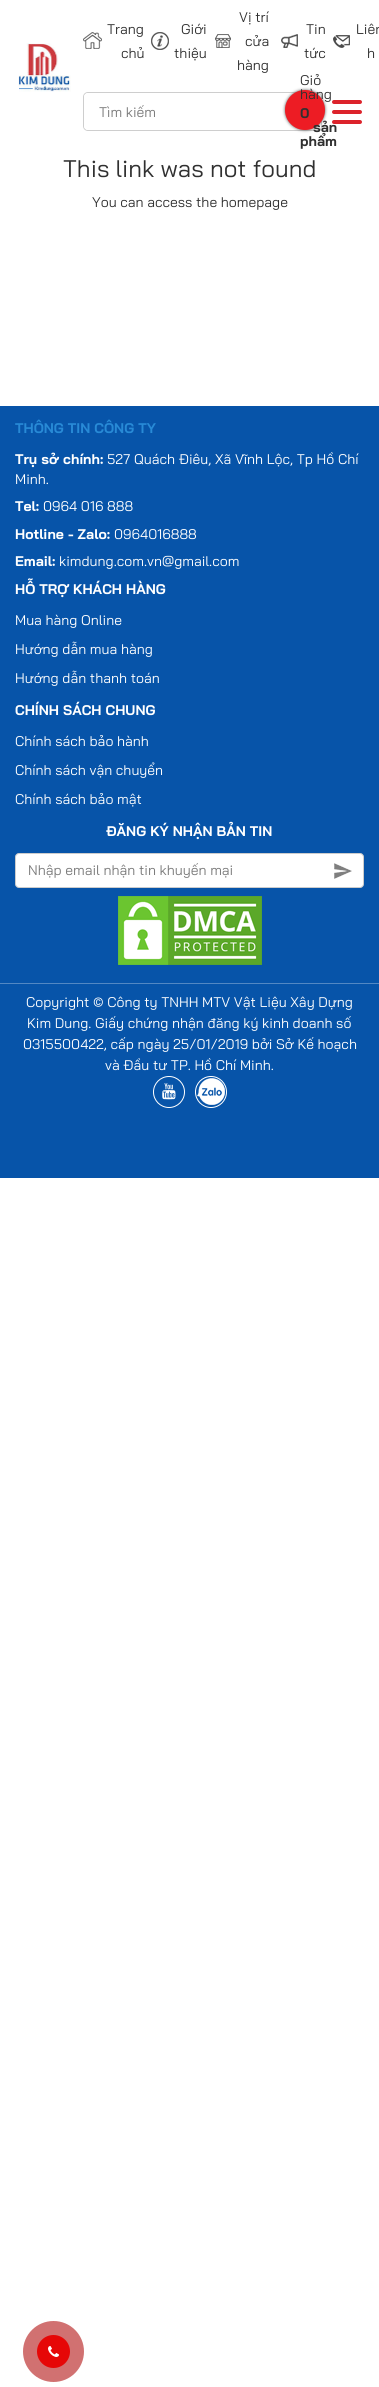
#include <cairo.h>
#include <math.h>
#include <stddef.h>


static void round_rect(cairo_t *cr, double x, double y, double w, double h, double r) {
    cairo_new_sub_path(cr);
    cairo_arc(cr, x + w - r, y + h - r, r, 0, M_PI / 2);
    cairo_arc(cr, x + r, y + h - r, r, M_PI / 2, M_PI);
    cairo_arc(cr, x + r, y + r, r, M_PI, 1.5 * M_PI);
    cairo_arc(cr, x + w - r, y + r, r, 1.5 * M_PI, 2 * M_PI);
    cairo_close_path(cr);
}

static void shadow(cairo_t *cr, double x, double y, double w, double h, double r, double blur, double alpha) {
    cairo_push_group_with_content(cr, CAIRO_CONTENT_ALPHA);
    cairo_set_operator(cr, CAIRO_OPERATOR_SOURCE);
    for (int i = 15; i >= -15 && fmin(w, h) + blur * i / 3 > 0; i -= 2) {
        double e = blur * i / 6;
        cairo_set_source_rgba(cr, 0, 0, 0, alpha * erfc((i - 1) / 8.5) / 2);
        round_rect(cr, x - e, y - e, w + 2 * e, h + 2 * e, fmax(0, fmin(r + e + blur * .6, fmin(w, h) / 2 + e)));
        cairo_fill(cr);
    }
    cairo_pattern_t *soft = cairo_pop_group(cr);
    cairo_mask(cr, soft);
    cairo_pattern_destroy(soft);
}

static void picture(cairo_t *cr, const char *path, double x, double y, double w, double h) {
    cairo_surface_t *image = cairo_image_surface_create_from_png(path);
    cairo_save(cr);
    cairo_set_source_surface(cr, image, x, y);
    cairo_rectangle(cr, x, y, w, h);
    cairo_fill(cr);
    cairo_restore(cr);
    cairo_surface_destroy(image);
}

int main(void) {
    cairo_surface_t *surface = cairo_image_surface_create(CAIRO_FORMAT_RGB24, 379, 2387);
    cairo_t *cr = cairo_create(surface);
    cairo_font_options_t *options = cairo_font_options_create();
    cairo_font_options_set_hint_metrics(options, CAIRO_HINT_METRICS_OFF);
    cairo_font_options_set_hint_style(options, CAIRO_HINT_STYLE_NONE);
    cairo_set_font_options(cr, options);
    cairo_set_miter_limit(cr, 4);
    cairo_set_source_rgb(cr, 1, 1, 1);
    cairo_paint(cr);
    picture(cr, "img1.png", 18, 43, 53, 49);
    cairo_select_font_face(cr, "Bai Jamjuree", CAIRO_FONT_SLANT_NORMAL, CAIRO_FONT_WEIGHT_NORMAL);
    cairo_set_font_size(cr, 14);
    cairo_set_source_rgb(cr, 0.188, 0.188, 0.188);
    cairo_move_to(cr, 107, 34);
    cairo_show_text(cr, "Trang");
    picture(cr, "img2.png", 83, 32, 19, 17);
    cairo_move_to(cr, 121, 58);
    cairo_show_text(cr, "chủ");
    cairo_move_to(cr, 181, 34);
    cairo_show_text(cr, "Giới");
    picture(cr, "img3.png", 151, 32, 18, 18);
    cairo_move_to(cr, 174, 58);
    cairo_show_text(cr, "thiệu");
    cairo_move_to(cr, 239, 22);
    cairo_show_text(cr, "Vị trí");
    picture(cr, "img4.png", 215, 34, 16, 14);
    cairo_move_to(cr, 245, 46);
    cairo_show_text(cr, "cửa");
    cairo_move_to(cr, 237, 70);
    cairo_show_text(cr, "hàng");
    cairo_move_to(cr, 306, 34);
    cairo_show_text(cr, "Tin");
    picture(cr, "img5.png", 281, 34, 17, 14);
    cairo_move_to(cr, 304, 58);
    cairo_show_text(cr, "tức");
    cairo_move_to(cr, 356, 34);
    cairo_show_text(cr, "Liên");
    picture(cr, "img6.png", 333, 35, 17, 13);
    cairo_move_to(cr, 367, 58);
    cairo_show_text(cr, "h");
    round_rect(cr, 83.5, 92.5, 238, 38, 4.5);
    cairo_set_source_rgb(cr, 0.808, 0.808, 0.808);
    cairo_set_line_width(cr, 1);
    cairo_stroke(cr);
    cairo_set_source_rgb(cr, 1, 1, 1);
    round_rect(cr, 84, 93, 237, 37, 4);
    cairo_fill(cr);
    cairo_set_source_rgb(cr, 0.478, 0.478, 0.478);
    cairo_move_to(cr, 99, 117);
    cairo_show_text(cr, "Tìm kiếm");
    cairo_set_source_rgb(cr, 0.345, 0.345, 0.345);
    shadow(cr, 285, 90, 40, 40, 20, 1.5, 1);
    cairo_set_source_rgb(cr, 0.929, 0.11, 0.141);
    cairo_arc(cr, 305, 110, 20, 0, 2 * M_PI);
    cairo_fill(cr);
    cairo_set_source_rgb(cr, 0.188, 0.188, 0.188);
    cairo_move_to(cr, 300, 85);
    cairo_show_text(cr, "Giỏ");
    cairo_move_to(cr, 300, 99);
    cairo_show_text(cr, "hàng");
    cairo_select_font_face(cr, "Bai Jamjuree", CAIRO_FONT_SLANT_NORMAL, CAIRO_FONT_WEIGHT_BOLD);
    cairo_move_to(cr, 300, 118);
    cairo_show_text(cr, "0");
    cairo_move_to(cr, 313, 132);
    cairo_show_text(cr, "sản");
    cairo_move_to(cr, 300, 146);
    cairo_show_text(cr, "phẩm");
    cairo_set_source_rgb(cr, 0.863, 0.137, 0.169);
    round_rect(cr, 332, 110, 30, 4, 2);
    cairo_fill(cr);
    round_rect(cr, 332, 100, 30, 4, 2);
    cairo_fill(cr);
    round_rect(cr, 332, 120, 30, 4, 2);
    cairo_fill(cr);
    cairo_select_font_face(cr, "Bai Jamjuree", CAIRO_FONT_SLANT_NORMAL, CAIRO_FONT_WEIGHT_NORMAL);
    cairo_set_font_size(cr, 24);
    cairo_set_source_rgb(cr, 0.188, 0.188, 0.188);
    cairo_move_to(cr, 63, 177);
    cairo_show_text(cr, "This link was not found");
    cairo_set_font_size(cr, 14);
    cairo_move_to(cr, 92, 207);
    cairo_show_text(cr, "You can access");
    cairo_move_to(cr, 196, 207);
    cairo_show_text(cr, "the homepage");
    cairo_set_source_rgb(cr, 0.031, 0.329, 0.663);
    cairo_rectangle(cr, 0, 406, 379, 577);
    cairo_fill(cr);
    cairo_select_font_face(cr, "Bai Jamjuree", CAIRO_FONT_SLANT_NORMAL, CAIRO_FONT_WEIGHT_BOLD);
    cairo_set_source_rgb(cr, 0.157, 0.541, 0.839);
    cairo_move_to(cr, 15, 433);
    cairo_show_text(cr, "THÔNG TIN CÔNG TY");
    cairo_set_source_rgb(cr, 1, 1, 1);
    cairo_move_to(cr, 15, 464);
    cairo_show_text(cr, "Trụ sở chính:");
    cairo_select_font_face(cr, "Bai Jamjuree", CAIRO_FONT_SLANT_NORMAL, CAIRO_FONT_WEIGHT_NORMAL);
    cairo_move_to(cr, 107, 464);
    cairo_show_text(cr, "527");
    cairo_move_to(cr, 134, 464);
    cairo_show_text(cr, "Quách Điêu, Xã Vĩnh Lộc, Tp Hồ Chí");
    cairo_move_to(cr, 15, 484);
    cairo_show_text(cr, "Minh.");
    cairo_select_font_face(cr, "Bai Jamjuree", CAIRO_FONT_SLANT_NORMAL, CAIRO_FONT_WEIGHT_BOLD);
    cairo_move_to(cr, 15, 511);
    cairo_show_text(cr, "Tel:");
    cairo_select_font_face(cr, "Bai Jamjuree", CAIRO_FONT_SLANT_NORMAL, CAIRO_FONT_WEIGHT_NORMAL);
    cairo_move_to(cr, 43, 511);
    cairo_show_text(cr, "0964 016 888");
    cairo_select_font_face(cr, "Bai Jamjuree", CAIRO_FONT_SLANT_NORMAL, CAIRO_FONT_WEIGHT_BOLD);
    cairo_move_to(cr, 15, 539);
    cairo_show_text(cr, "Hotline - Zalo:");
    cairo_select_font_face(cr, "Bai Jamjuree", CAIRO_FONT_SLANT_NORMAL, CAIRO_FONT_WEIGHT_NORMAL);
    cairo_move_to(cr, 114, 539);
    cairo_show_text(cr, "0964016888");
    cairo_select_font_face(cr, "Bai Jamjuree", CAIRO_FONT_SLANT_NORMAL, CAIRO_FONT_WEIGHT_BOLD);
    cairo_move_to(cr, 15, 566);
    cairo_show_text(cr, "Email:");
    cairo_select_font_face(cr, "Bai Jamjuree", CAIRO_FONT_SLANT_NORMAL, CAIRO_FONT_WEIGHT_NORMAL);
    cairo_move_to(cr, 59, 566);
    cairo_show_text(cr, "kimdung.com.vn@gmail.com");
    cairo_select_font_face(cr, "Bai Jamjuree", CAIRO_FONT_SLANT_NORMAL, CAIRO_FONT_WEIGHT_BOLD);
    cairo_move_to(cr, 15, 594);
    cairo_show_text(cr, "HỖ TRỢ KHÁCH HÀNG");
    cairo_select_font_face(cr, "Bai Jamjuree", CAIRO_FONT_SLANT_NORMAL, CAIRO_FONT_WEIGHT_NORMAL);
    cairo_move_to(cr, 15, 625);
    cairo_show_text(cr, "Mua hàng Online");
    cairo_move_to(cr, 15, 654);
    cairo_show_text(cr, "Hướng dẫn mua hàng");
    cairo_move_to(cr, 15, 683);
    cairo_show_text(cr, "Hướng dẫn thanh toán");
    cairo_select_font_face(cr, "Bai Jamjuree", CAIRO_FONT_SLANT_NORMAL, CAIRO_FONT_WEIGHT_BOLD);
    cairo_move_to(cr, 15, 715);
    cairo_show_text(cr, "CHÍNH SÁCH CHUNG");
    cairo_select_font_face(cr, "Bai Jamjuree", CAIRO_FONT_SLANT_NORMAL, CAIRO_FONT_WEIGHT_NORMAL);
    cairo_move_to(cr, 15, 746);
    cairo_show_text(cr, "Chính sách bảo hành");
    cairo_move_to(cr, 15, 775);
    cairo_show_text(cr, "Chính sách vận chuyển");
    cairo_move_to(cr, 15, 804);
    cairo_show_text(cr, "Chính sách bảo mật");
    cairo_select_font_face(cr, "Bai Jamjuree", CAIRO_FONT_SLANT_NORMAL, CAIRO_FONT_WEIGHT_BOLD);
    cairo_move_to(cr, 106, 836);
    cairo_show_text(cr, "ĐĂNG KÝ NHẬN BẢN TIN");
    round_rect(cr, 15.5, 853.5, 348, 34, 3.5);
    cairo_fill_preserve(cr);
    cairo_set_source_rgb(cr, 0.8, 0.8, 0.8);
    cairo_stroke(cr);
    cairo_select_font_face(cr, "Bai Jamjuree", CAIRO_FONT_SLANT_NORMAL, CAIRO_FONT_WEIGHT_NORMAL);
    cairo_set_source_rgb(cr, 0.478, 0.478, 0.478);
    cairo_move_to(cr, 28, 875);
    cairo_show_text(cr, "Nhập email nhận tin khuyến mại");
    picture(cr, "img7.png", 334, 863, 18, 16);
    picture(cr, "img8.png", 118, 896, 144, 69);
    cairo_set_source_rgb(cr, 0.031, 0.329, 0.663);
    cairo_rectangle(cr, 0, 984, 379, 194);
    cairo_fill(cr);
    cairo_set_source_rgb(cr, 0.325, 0.533, 0.765);
    cairo_rectangle(cr, 0, 983, 379, 1);
    cairo_fill(cr);
    cairo_set_source_rgb(cr, 1, 1, 1);
    cairo_move_to(cr, 26, 1007);
    cairo_show_text(cr, "Copyright © Công ty TNHH MTV Vật Liệu Xây Dựng");
    cairo_move_to(cr, 27, 1028);
    cairo_show_text(cr, "Kim Dung. Giấy chứng nhận đăng ký kinh doanh số");
    cairo_move_to(cr, 23, 1049);
    cairo_show_text(cr, "0315500422, cấp ngày 25/01/2019 bởi Sở Kế hoạch");
    cairo_move_to(cr, 105, 1070);
    cairo_show_text(cr, "và Đầu tư TP. Hồ Chí Minh.");
    cairo_new_path(cr);
    cairo_arc(cr, 169, 1092, 15.5, 0, 2 * M_PI);
    cairo_stroke(cr);
    picture(cr, "img9.png", 162, 1083, 14, 17);
    cairo_arc(cr, 211, 1092, 15.5, 0, 2 * M_PI);
    cairo_stroke(cr);
    picture(cr, "img10.png", 197, 1078, 28, 27);
    cairo_set_source_rgb(cr, 0.82, 0.443, 0.443);
    cairo_arc(cr, 53.5, 2351.5, 30.5, 0, 2 * M_PI);
    cairo_fill(cr);
    cairo_set_source_rgb(cr, 0.902, 0.031, 0.031);
    cairo_arc(cr, 53.5, 2351.5, 16.5, 0, 2 * M_PI);
    cairo_fill(cr);
    picture(cr, "img11.png", 48, 2346, 11, 11);
    cairo_surface_write_to_png(surface, "page.png");
    cairo_font_options_destroy(options);
    cairo_destroy(cr);
    cairo_surface_destroy(surface);
    return 0;
}
